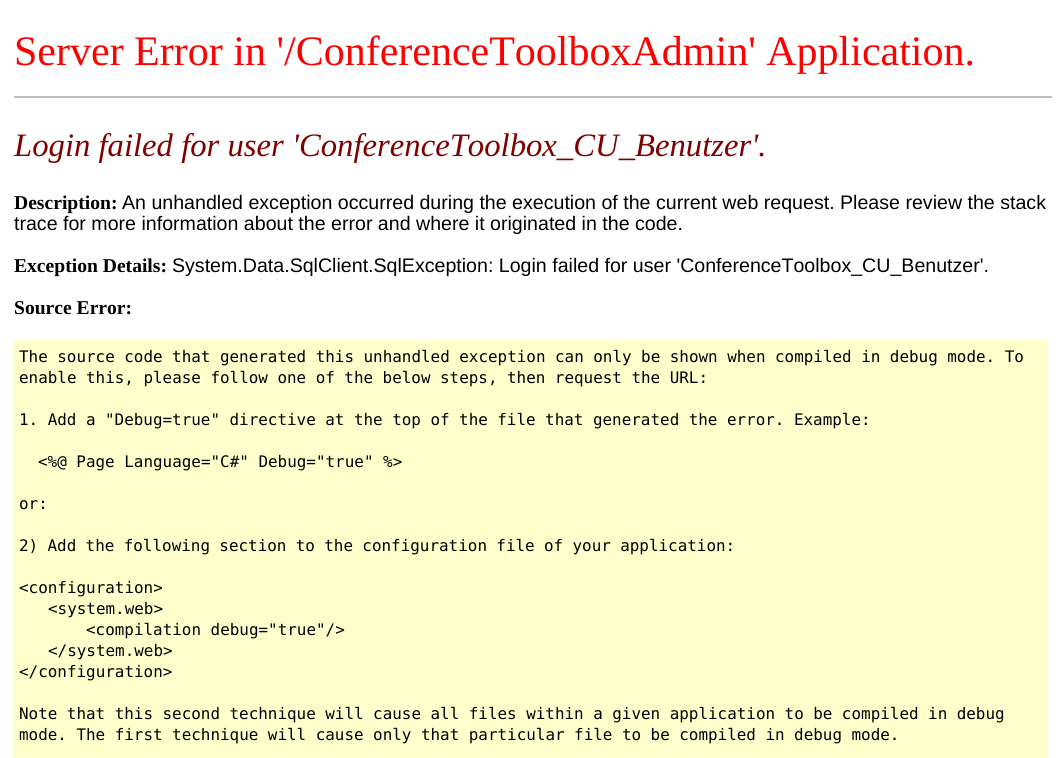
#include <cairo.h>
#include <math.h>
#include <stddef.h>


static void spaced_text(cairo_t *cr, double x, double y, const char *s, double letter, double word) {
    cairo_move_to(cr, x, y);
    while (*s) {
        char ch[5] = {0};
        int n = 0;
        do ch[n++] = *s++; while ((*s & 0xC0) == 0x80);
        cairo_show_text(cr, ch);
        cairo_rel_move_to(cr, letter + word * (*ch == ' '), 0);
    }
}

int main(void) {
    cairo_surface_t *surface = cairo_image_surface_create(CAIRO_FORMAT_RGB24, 1061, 758);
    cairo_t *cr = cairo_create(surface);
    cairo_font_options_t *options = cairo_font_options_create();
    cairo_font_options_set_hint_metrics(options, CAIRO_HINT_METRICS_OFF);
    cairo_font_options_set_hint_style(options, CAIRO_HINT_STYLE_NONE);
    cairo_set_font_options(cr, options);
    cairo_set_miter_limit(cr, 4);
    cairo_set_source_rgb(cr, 1, 1, 1);
    cairo_paint(cr);
    cairo_select_font_face(cr, "Liberation Serif", CAIRO_FONT_SLANT_NORMAL, CAIRO_FONT_WEIGHT_NORMAL);
    cairo_set_font_size(cr, 42);
    cairo_set_source_rgb(cr, 1, 0, 0);
    cairo_move_to(cr, 14, 65);
    cairo_show_text(cr, "Server Error in '/ConferenceToolboxAdmin' Application.");
    cairo_set_source_rgb(cr, 0.753, 0.753, 0.753);
    cairo_rectangle(cr, 14, 96, 1038, 2);
    cairo_fill(cr);
    cairo_select_font_face(cr, "Liberation Serif", CAIRO_FONT_SLANT_ITALIC, CAIRO_FONT_WEIGHT_NORMAL);
    cairo_set_font_size(cr, 32.7);
    cairo_set_source_rgb(cr, 0.502, 0, 0);
    cairo_move_to(cr, 14, 156);
    cairo_show_text(cr, "Login failed for user 'ConferenceToolbox_CU_Benutzer'.");
    cairo_select_font_face(cr, "Liberation Serif", CAIRO_FONT_SLANT_NORMAL, CAIRO_FONT_WEIGHT_BOLD);
    cairo_set_font_size(cr, 19.6);
    cairo_set_source_rgb(cr, 0, 0, 0);
    cairo_move_to(cr, 14, 209);
    cairo_show_text(cr, "Description:");
    cairo_select_font_face(cr, "Liberation Sans", CAIRO_FONT_SLANT_NORMAL, CAIRO_FONT_WEIGHT_NORMAL);
    cairo_move_to(cr, 122, 209);
    cairo_show_text(cr, "An unhandled exception occurred during the execution of the current web request. Please review the stack");
    cairo_move_to(cr, 14, 230);
    cairo_show_text(cr, "trace for more information about the error and where it originated in the code.");
    cairo_select_font_face(cr, "Liberation Serif", CAIRO_FONT_SLANT_NORMAL, CAIRO_FONT_WEIGHT_BOLD);
    cairo_move_to(cr, 14, 272);
    cairo_show_text(cr, "Exception Details:");
    cairo_select_font_face(cr, "Liberation Sans", CAIRO_FONT_SLANT_NORMAL, CAIRO_FONT_WEIGHT_NORMAL);
    cairo_move_to(cr, 172, 272);
    cairo_show_text(cr, "System.Data.SqlClient.SqlException: Login failed for user 'ConferenceToolbox_CU_Benutzer'.");
    cairo_select_font_face(cr, "Liberation Serif", CAIRO_FONT_SLANT_NORMAL, CAIRO_FONT_WEIGHT_BOLD);
    cairo_move_to(cr, 14, 314);
    cairo_show_text(cr, "Source Error:");
    cairo_set_source_rgb(cr, 1, 1, 0.8);
    cairo_rectangle(cr, 14, 340, 1034, 418);
    cairo_fill(cr);
    cairo_select_font_face(cr, "DejaVu Sans Mono", CAIRO_FONT_SLANT_NORMAL, CAIRO_FONT_WEIGHT_NORMAL);
    cairo_set_font_size(cr, 15.92);
    cairo_set_source_rgb(cr, 0, 0, 0);
    spaced_text(cr, 19, 362, "The source code that generated this unhandled exception can only be shown when compiled in debug mode. To", 0, -0.1);
    spaced_text(cr, 19, 383, "enable this, please follow one of the below steps, then request the URL:", 0, -0.1);
    spaced_text(cr, 19, 425, "1. Add a \"Debug=true\" directive at the top of the file that generated the error. Example:", 0, -0.1);
    cairo_move_to(cr, 38, 467);
    cairo_show_text(cr, "<%@ Page Language=\"C#\" Debug=\"true\" %>");
    cairo_move_to(cr, 19, 509);
    cairo_show_text(cr, "or:");
    spaced_text(cr, 19, 551, "2) Add the following section to the configuration file of your application:", 0, -0.25);
    cairo_move_to(cr, 19, 593);
    cairo_show_text(cr, "<configuration>");
    cairo_move_to(cr, 48, 614);
    cairo_show_text(cr, "<system.web>");
    cairo_move_to(cr, 86, 635);
    cairo_show_text(cr, "<compilation debug=\"true\"/>");
    cairo_move_to(cr, 48, 656);
    cairo_show_text(cr, "</system.web>");
    cairo_move_to(cr, 19, 677);
    cairo_show_text(cr, "</configuration>");
    spaced_text(cr, 19, 719, "Note that this second technique will cause all files within a given application to be compiled in debug", 0, -0.1);
    spaced_text(cr, 19, 740, "mode. The first technique will cause only that particular file to be compiled in debug mode.", 0, -0.1);
    cairo_surface_write_to_png(surface, "page.png");
    cairo_font_options_destroy(options);
    cairo_destroy(cr);
    cairo_surface_destroy(surface);
    return 0;
}
